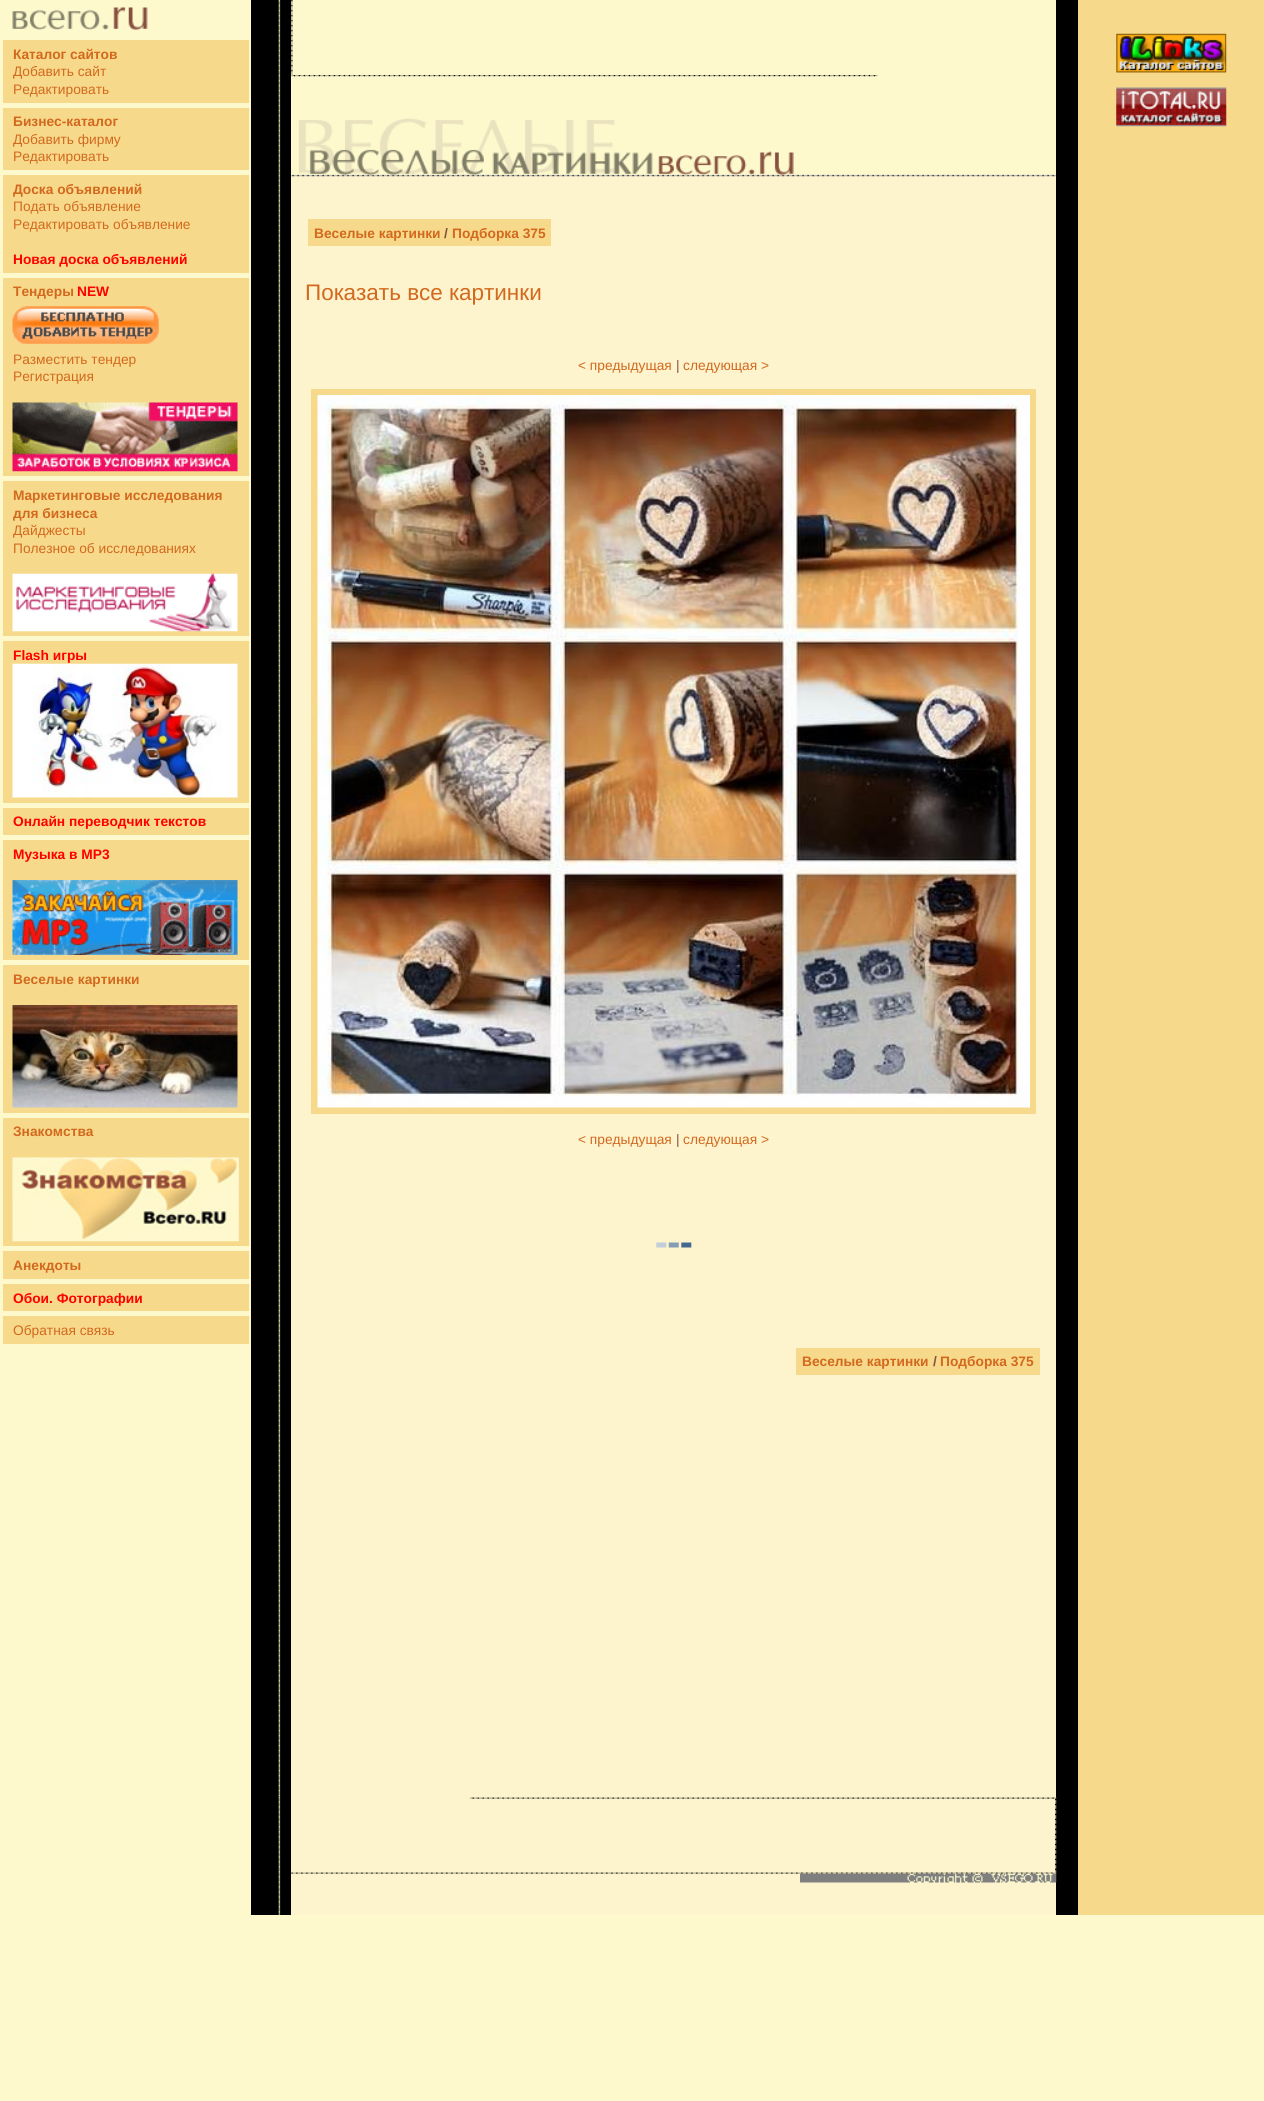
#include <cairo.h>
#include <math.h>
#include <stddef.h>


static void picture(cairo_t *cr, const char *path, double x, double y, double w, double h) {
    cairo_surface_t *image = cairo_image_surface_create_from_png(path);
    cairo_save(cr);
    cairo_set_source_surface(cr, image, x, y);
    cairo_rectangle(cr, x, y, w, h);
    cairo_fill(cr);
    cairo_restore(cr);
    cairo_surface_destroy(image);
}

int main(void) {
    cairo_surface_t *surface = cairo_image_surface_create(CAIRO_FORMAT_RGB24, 1264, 2101);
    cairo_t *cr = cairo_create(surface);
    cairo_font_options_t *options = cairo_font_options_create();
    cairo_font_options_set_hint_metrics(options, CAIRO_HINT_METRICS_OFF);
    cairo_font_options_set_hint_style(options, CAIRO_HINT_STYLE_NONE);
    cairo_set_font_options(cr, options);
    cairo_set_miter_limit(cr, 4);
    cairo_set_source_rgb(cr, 0.992, 0.976, 0.804);
    cairo_paint(cr);
    picture(cr, "img1.png", 12, 7, 136, 23);
    cairo_set_source_rgb(cr, 0.965, 0.851, 0.545);
    cairo_rectangle(cr, 3, 40, 246, 63);
    cairo_fill(cr);
    cairo_select_font_face(cr, "Liberation Sans", CAIRO_FONT_SLANT_NORMAL, CAIRO_FONT_WEIGHT_BOLD);
    cairo_set_font_size(cr, 13.75);
    cairo_set_source_rgb(cr, 0.824, 0.412, 0.118);
    cairo_move_to(cr, 13, 59);
    cairo_show_text(cr, "Каталог сайтов");
    cairo_select_font_face(cr, "Liberation Sans", CAIRO_FONT_SLANT_NORMAL, CAIRO_FONT_WEIGHT_NORMAL);
    cairo_move_to(cr, 13, 76);
    cairo_show_text(cr, "Добавить сайт");
    cairo_move_to(cr, 13, 94);
    cairo_show_text(cr, "Редактировать");
    cairo_set_source_rgb(cr, 0.965, 0.851, 0.545);
    cairo_rectangle(cr, 3, 108, 246, 62);
    cairo_fill(cr);
    cairo_select_font_face(cr, "Liberation Sans", CAIRO_FONT_SLANT_NORMAL, CAIRO_FONT_WEIGHT_BOLD);
    cairo_set_source_rgb(cr, 0.824, 0.412, 0.118);
    cairo_move_to(cr, 13, 126);
    cairo_show_text(cr, "Бизнес-каталог");
    cairo_select_font_face(cr, "Liberation Sans", CAIRO_FONT_SLANT_NORMAL, CAIRO_FONT_WEIGHT_NORMAL);
    cairo_move_to(cr, 13, 144);
    cairo_show_text(cr, "Добавить фирму");
    cairo_move_to(cr, 13, 161);
    cairo_show_text(cr, "Редактировать");
    cairo_set_source_rgb(cr, 0.965, 0.851, 0.545);
    cairo_rectangle(cr, 3, 175, 246, 98);
    cairo_fill(cr);
    cairo_select_font_face(cr, "Liberation Sans", CAIRO_FONT_SLANT_NORMAL, CAIRO_FONT_WEIGHT_BOLD);
    cairo_set_source_rgb(cr, 0.824, 0.412, 0.118);
    cairo_move_to(cr, 13, 194);
    cairo_show_text(cr, "Доска объявлений");
    cairo_select_font_face(cr, "Liberation Sans", CAIRO_FONT_SLANT_NORMAL, CAIRO_FONT_WEIGHT_NORMAL);
    cairo_move_to(cr, 13, 211);
    cairo_show_text(cr, "Подать объявление");
    cairo_move_to(cr, 13, 229);
    cairo_show_text(cr, "Редактировать объявление");
    cairo_select_font_face(cr, "Liberation Sans", CAIRO_FONT_SLANT_NORMAL, CAIRO_FONT_WEIGHT_BOLD);
    cairo_set_source_rgb(cr, 1, 0, 0);
    cairo_move_to(cr, 13, 264);
    cairo_show_text(cr, "Новая доска объявлений");
    cairo_set_source_rgb(cr, 0.965, 0.851, 0.545);
    cairo_rectangle(cr, 3, 278, 246, 198);
    cairo_fill(cr);
    cairo_set_source_rgb(cr, 0.824, 0.412, 0.118);
    cairo_move_to(cr, 13, 296);
    cairo_show_text(cr, "Тендеры");
    cairo_set_source_rgb(cr, 1, 0, 0);
    cairo_move_to(cr, 77, 296);
    cairo_show_text(cr, "NEW");
    picture(cr, "img2.png", 12, 306, 147, 38);
    cairo_select_font_face(cr, "Liberation Sans", CAIRO_FONT_SLANT_NORMAL, CAIRO_FONT_WEIGHT_NORMAL);
    cairo_set_source_rgb(cr, 0.824, 0.412, 0.118);
    cairo_move_to(cr, 13, 364);
    cairo_show_text(cr, "Разместить тендер");
    cairo_move_to(cr, 13, 381);
    cairo_show_text(cr, "Регистрация");
    picture(cr, "img3.png", 12, 402, 226, 70);
    cairo_set_source_rgb(cr, 0.965, 0.851, 0.545);
    cairo_rectangle(cr, 3, 481, 246, 155);
    cairo_fill(cr);
    cairo_select_font_face(cr, "Liberation Sans", CAIRO_FONT_SLANT_NORMAL, CAIRO_FONT_WEIGHT_BOLD);
    cairo_set_source_rgb(cr, 0.824, 0.412, 0.118);
    cairo_move_to(cr, 13, 500);
    cairo_show_text(cr, "Маркетинговые исследования");
    cairo_move_to(cr, 13, 518);
    cairo_show_text(cr, "для бизнеса");
    cairo_select_font_face(cr, "Liberation Sans", CAIRO_FONT_SLANT_NORMAL, CAIRO_FONT_WEIGHT_NORMAL);
    cairo_move_to(cr, 13, 535);
    cairo_show_text(cr, "Дайджесты");
    cairo_move_to(cr, 13, 553);
    cairo_show_text(cr, "Полезное об исследованиях");
    picture(cr, "img4.png", 12, 573, 226, 59);
    cairo_set_source_rgb(cr, 0.965, 0.851, 0.545);
    cairo_rectangle(cr, 3, 641, 246, 162);
    cairo_fill(cr);
    cairo_select_font_face(cr, "Liberation Sans", CAIRO_FONT_SLANT_NORMAL, CAIRO_FONT_WEIGHT_BOLD);
    cairo_set_source_rgb(cr, 1, 0, 0);
    cairo_move_to(cr, 13, 660);
    cairo_show_text(cr, "Flash игры");
    picture(cr, "img5.png", 12, 663, 226, 135);
    cairo_set_source_rgb(cr, 0.965, 0.851, 0.545);
    cairo_rectangle(cr, 3, 808, 246, 27);
    cairo_fill(cr);
    cairo_set_source_rgb(cr, 1, 0, 0);
    cairo_move_to(cr, 13, 826);
    cairo_show_text(cr, "Онлайн переводчик текстов");
    cairo_set_source_rgb(cr, 0.965, 0.851, 0.545);
    cairo_rectangle(cr, 3, 840, 246, 120);
    cairo_fill(cr);
    cairo_set_source_rgb(cr, 1, 0, 0);
    cairo_move_to(cr, 13, 859);
    cairo_show_text(cr, "Музыка в MP3");
    picture(cr, "img6.png", 12, 880, 226, 75);
    cairo_set_source_rgb(cr, 0.965, 0.851, 0.545);
    cairo_rectangle(cr, 3, 965, 246, 148);
    cairo_fill(cr);
    cairo_set_source_rgb(cr, 0.824, 0.412, 0.118);
    cairo_move_to(cr, 13, 984);
    cairo_show_text(cr, "Веселые картинки");
    picture(cr, "img7.png", 12, 1005, 226, 103);
    cairo_set_source_rgb(cr, 0.965, 0.851, 0.545);
    cairo_rectangle(cr, 3, 1118, 246, 128);
    cairo_fill(cr);
    cairo_set_source_rgb(cr, 0.824, 0.412, 0.118);
    cairo_move_to(cr, 13, 1136);
    cairo_show_text(cr, "Знакомства");
    picture(cr, "img8.png", 12, 1157, 227, 85);
    cairo_set_source_rgb(cr, 0.965, 0.851, 0.545);
    cairo_rectangle(cr, 3, 1251, 246, 28);
    cairo_fill(cr);
    cairo_set_source_rgb(cr, 0.824, 0.412, 0.118);
    cairo_move_to(cr, 13, 1270);
    cairo_show_text(cr, "Анекдоты");
    cairo_set_source_rgb(cr, 0.965, 0.851, 0.545);
    cairo_rectangle(cr, 3, 1284, 246, 27);
    cairo_fill(cr);
    cairo_set_source_rgb(cr, 1, 0, 0);
    cairo_move_to(cr, 13, 1303);
    cairo_show_text(cr, "Обои. Фотографии");
    cairo_set_source_rgb(cr, 0.965, 0.851, 0.545);
    cairo_rectangle(cr, 3, 1316, 246, 28);
    cairo_fill(cr);
    cairo_select_font_face(cr, "Liberation Sans", CAIRO_FONT_SLANT_NORMAL, CAIRO_FONT_WEIGHT_NORMAL);
    cairo_set_source_rgb(cr, 0.824, 0.412, 0.118);
    cairo_move_to(cr, 13, 1335);
    cairo_show_text(cr, "Обратная связь");
    cairo_set_source_rgb(cr, 0, 0, 0);
    cairo_rectangle(cr, 251, 0, 40, 1915);
    cairo_fill(cr);
    picture(cr, "img9.png", 278, 0, 3, 1796);
    cairo_set_source_rgb(cr, 0.992, 0.953, 0.804);
    cairo_rectangle(cr, 291, 176, 765, 1739);
    cairo_fill(cr);
    picture(cr, "img10.png", 291, 0, 2, 75);
    picture(cr, "img11.png", 291, 75, 587, 2);
    picture(cr, "img12.png", 291, 174, 765, 3);
    picture(cr, "img13.png", 298, 118, 496, 58);
    cairo_set_source_rgb(cr, 0.965, 0.851, 0.545);
    cairo_rectangle(cr, 308, 219, 243, 27);
    cairo_fill(cr);
    cairo_select_font_face(cr, "Liberation Sans", CAIRO_FONT_SLANT_NORMAL, CAIRO_FONT_WEIGHT_BOLD);
    cairo_set_source_rgb(cr, 0.824, 0.412, 0.118);
    cairo_move_to(cr, 314, 238);
    cairo_show_text(cr, "Веселые картинки");
    cairo_set_source_rgb(cr, 0.525, 0.314, 0.243);
    cairo_move_to(cr, 444, 238);
    cairo_show_text(cr, "/");
    cairo_set_source_rgb(cr, 0.824, 0.412, 0.118);
    cairo_move_to(cr, 452, 238);
    cairo_show_text(cr, "Подборка 375");
    cairo_select_font_face(cr, "Liberation Sans", CAIRO_FONT_SLANT_NORMAL, CAIRO_FONT_WEIGHT_NORMAL);
    cairo_set_font_size(cr, 22.5);
    cairo_move_to(cr, 305, 300);
    cairo_show_text(cr, "Показать все картинки");
    cairo_set_font_size(cr, 13.75);
    cairo_move_to(cr, 578, 370);
    cairo_show_text(cr, "< предыдущая");
    cairo_set_source_rgb(cr, 0.525, 0.314, 0.243);
    cairo_move_to(cr, 676, 370);
    cairo_show_text(cr, "|");
    cairo_set_source_rgb(cr, 0.824, 0.412, 0.118);
    cairo_move_to(cr, 683, 370);
    cairo_show_text(cr, "следующая >");
    cairo_set_source_rgb(cr, 0.965, 0.851, 0.545);
    cairo_rectangle(cr, 311, 389, 725, 725);
    cairo_fill(cr);
    picture(cr, "img14.png", 317, 395, 713, 713);
    cairo_set_source_rgb(cr, 0.824, 0.412, 0.118);
    cairo_move_to(cr, 578, 1144);
    cairo_show_text(cr, "< предыдущая");
    cairo_set_source_rgb(cr, 0.525, 0.314, 0.243);
    cairo_move_to(cr, 676, 1144);
    cairo_show_text(cr, "|");
    cairo_set_source_rgb(cr, 0.824, 0.412, 0.118);
    cairo_move_to(cr, 683, 1144);
    cairo_show_text(cr, "следующая >");
    picture(cr, "img15.png", 656, 1242, 36, 6);
    cairo_set_source_rgb(cr, 0.965, 0.851, 0.545);
    cairo_rectangle(cr, 796, 1348, 244, 27);
    cairo_fill(cr);
    cairo_select_font_face(cr, "Liberation Sans", CAIRO_FONT_SLANT_NORMAL, CAIRO_FONT_WEIGHT_BOLD);
    cairo_set_source_rgb(cr, 0.824, 0.412, 0.118);
    cairo_move_to(cr, 802, 1366);
    cairo_show_text(cr, "Веселые картинки");
    cairo_set_source_rgb(cr, 0.525, 0.314, 0.243);
    cairo_move_to(cr, 933, 1366);
    cairo_show_text(cr, "/");
    cairo_set_source_rgb(cr, 0.824, 0.412, 0.118);
    cairo_move_to(cr, 940, 1366);
    cairo_show_text(cr, "Подборка 375");
    cairo_set_source_rgb(cr, 0, 0, 0);
    cairo_rectangle(cr, 1056, 0, 22, 1915);
    cairo_fill(cr);
    cairo_set_source_rgb(cr, 0.965, 0.851, 0.545);
    cairo_rectangle(cr, 1078, 0, 186, 1915);
    cairo_fill(cr);
    picture(cr, "img16.png", 1116, 33, 111, 40);
    picture(cr, "img17.png", 1116, 87, 111, 40);
    picture(cr, "img18.png", 278, 1796, 3, 119);
    picture(cr, "img19.png", 291, 1872, 765, 2);
    picture(cr, "img20.png", 470, 1797, 587, 2);
    picture(cr, "img21.png", 1055, 1798, 2, 76);
    picture(cr, "img22.png", 800, 1873, 257, 10);
    cairo_surface_write_to_png(surface, "page.png");
    cairo_font_options_destroy(options);
    cairo_destroy(cr);
    cairo_surface_destroy(surface);
    return 0;
}
